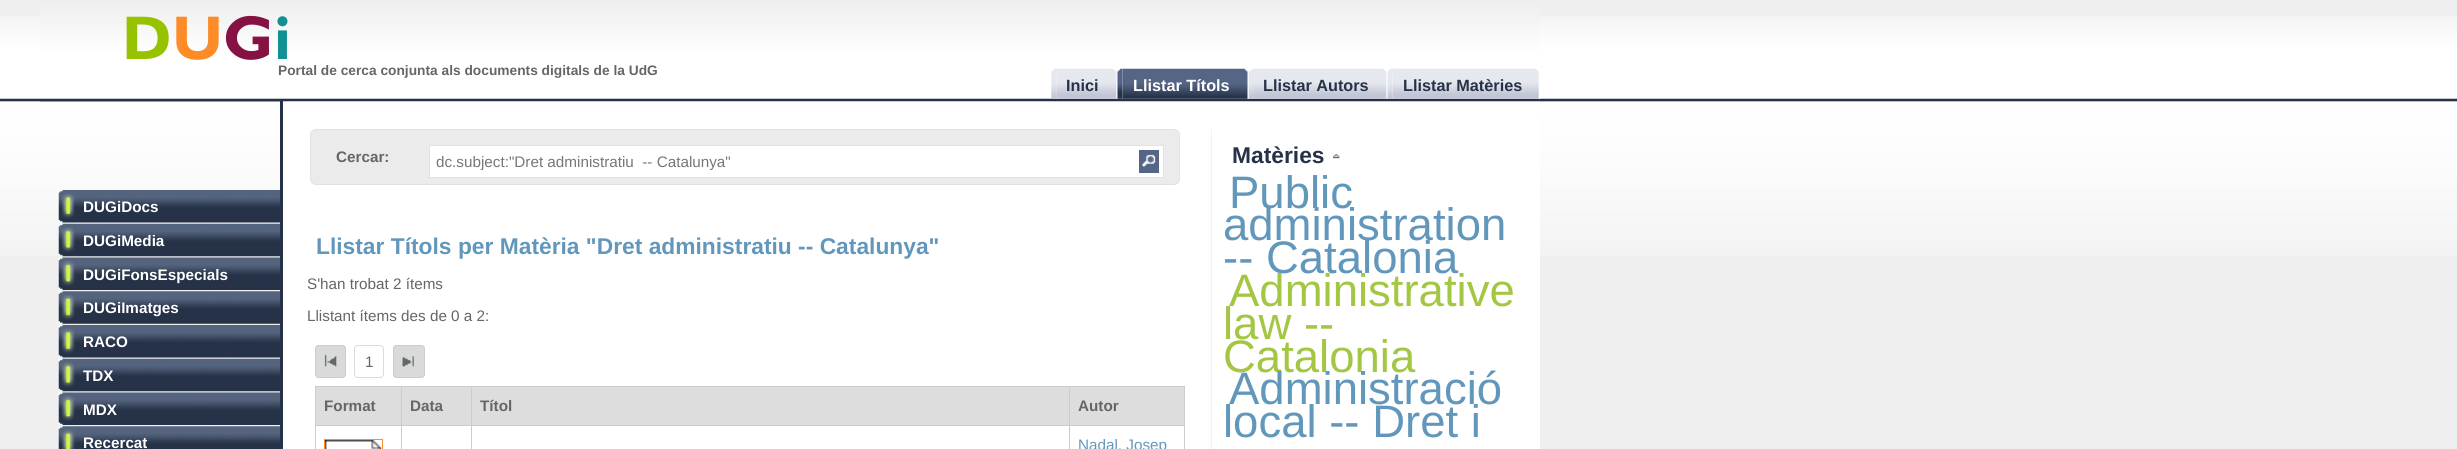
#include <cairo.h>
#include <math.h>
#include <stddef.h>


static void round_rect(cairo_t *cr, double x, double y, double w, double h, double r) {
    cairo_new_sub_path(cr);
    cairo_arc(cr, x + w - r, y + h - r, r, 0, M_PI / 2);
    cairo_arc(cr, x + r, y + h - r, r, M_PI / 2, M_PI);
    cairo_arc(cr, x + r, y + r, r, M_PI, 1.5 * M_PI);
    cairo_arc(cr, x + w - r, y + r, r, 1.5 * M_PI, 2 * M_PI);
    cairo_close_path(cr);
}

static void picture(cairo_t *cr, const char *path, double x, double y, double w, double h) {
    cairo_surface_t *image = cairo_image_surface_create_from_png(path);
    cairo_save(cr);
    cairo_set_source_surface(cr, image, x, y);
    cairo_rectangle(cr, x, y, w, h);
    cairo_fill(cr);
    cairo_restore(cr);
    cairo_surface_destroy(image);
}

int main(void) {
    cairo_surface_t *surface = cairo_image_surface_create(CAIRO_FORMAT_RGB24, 2457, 449);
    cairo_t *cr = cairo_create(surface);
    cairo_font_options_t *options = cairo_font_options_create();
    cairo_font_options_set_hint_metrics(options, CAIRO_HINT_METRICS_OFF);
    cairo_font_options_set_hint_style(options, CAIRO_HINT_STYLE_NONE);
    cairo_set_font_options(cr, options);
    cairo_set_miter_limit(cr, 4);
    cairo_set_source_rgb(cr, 0.937, 0.937, 0.937);
    cairo_paint(cr);
    picture(cr, "img1.png", 0, 16, 2457, 240);
    cairo_set_source_rgb(cr, 1, 1, 1);
    cairo_rectangle(cr, 283, 101, 1257, 348);
    cairo_fill(cr);
    cairo_set_source_rgb(cr, 0.149, 0.196, 0.282);
    cairo_rectangle(cr, 280, 101, 3, 348);
    cairo_fill(cr);
    picture(cr, "img2.png", 40, 0, 1500, 102);
    cairo_select_font_face(cr, "Gill Sans", CAIRO_FONT_SLANT_NORMAL, CAIRO_FONT_WEIGHT_BOLD);
    cairo_set_font_size(cr, 62);
    cairo_set_source_rgb(cr, 0.588, 0.761, 0);
    cairo_move_to(cr, 122, 59);
    cairo_show_text(cr, "D");
    cairo_set_source_rgb(cr, 0.992, 0.549, 0.157);
    cairo_move_to(cr, 172, 59);
    cairo_show_text(cr, "U");
    cairo_set_source_rgb(cr, 0.525, 0.067, 0.263);
    cairo_move_to(cr, 223, 59);
    cairo_show_text(cr, "G");
    cairo_set_source_rgb(cr, 0.067, 0.569, 0.576);
    cairo_move_to(cr, 274, 59);
    cairo_show_text(cr, "i");
    cairo_select_font_face(cr, "Liberation Sans", CAIRO_FONT_SLANT_NORMAL, CAIRO_FONT_WEIGHT_BOLD);
    cairo_set_font_size(cr, 13.75);
    cairo_set_source_rgb(cr, 0.4, 0.4, 0.4);
    cairo_move_to(cr, 278, 75);
    cairo_show_text(cr, "Portal de cerca conjunta als documents digitals de la UdG");
    picture(cr, "img3.png", 1051, 68, 6, 31);
    picture(cr, "img4.png", 1056, 68, 62, 31);
    cairo_set_font_size(cr, 16.25);
    cairo_set_source_rgb(cr, 0.149, 0.196, 0.282);
    cairo_move_to(cr, 1066, 91);
    cairo_show_text(cr, "Inici");
    picture(cr, "img5.png", 1117, 68, 6, 31);
    picture(cr, "img6.png", 1122, 68, 127, 31);
    cairo_set_source_rgb(cr, 1, 1, 1);
    cairo_move_to(cr, 1133, 91);
    cairo_show_text(cr, "Llistar Títols");
    picture(cr, "img7.png", 1248, 68, 7, 31);
    picture(cr, "img8.png", 1254, 68, 134, 31);
    cairo_set_source_rgb(cr, 0.149, 0.196, 0.282);
    cairo_move_to(cr, 1263, 91);
    cairo_show_text(cr, "Llistar Autors");
    picture(cr, "img9.png", 1387, 68, 6, 31);
    picture(cr, "img10.png", 1392, 68, 148, 31);
    cairo_move_to(cr, 1403, 91);
    cairo_show_text(cr, "Llistar Matèries");
    picture(cr, "img11.png", 58, 190, 222, 33);
    cairo_set_font_size(cr, 15.25);
    cairo_set_source_rgb(cr, 1, 1, 1);
    cairo_move_to(cr, 83, 212);
    cairo_show_text(cr, "DUGiDocs");
    picture(cr, "img12.png", 58, 223, 222, 34);
    cairo_move_to(cr, 83, 246);
    cairo_show_text(cr, "DUGiMedia");
    picture(cr, "img13.png", 58, 257, 222, 33);
    cairo_move_to(cr, 83, 280);
    cairo_show_text(cr, "DUGiFonsEspecials");
    picture(cr, "img14.png", 58, 291, 222, 33);
    cairo_move_to(cr, 83, 313);
    cairo_show_text(cr, "DUGiImatges");
    picture(cr, "img15.png", 58, 325, 222, 33);
    cairo_move_to(cr, 83, 347);
    cairo_show_text(cr, "RACO");
    picture(cr, "img16.png", 58, 358, 222, 34);
    cairo_move_to(cr, 83, 381);
    cairo_show_text(cr, "TDX");
    picture(cr, "img13.png", 58, 392, 222, 33);
    cairo_move_to(cr, 83, 415);
    cairo_show_text(cr, "MDX");
    picture(cr, "img17.png", 58, 426, 222, 23);
    cairo_move_to(cr, 83, 448);
    cairo_show_text(cr, "Recercat");
    cairo_set_source_rgb(cr, 0.918, 0.918, 0.918);
    round_rect(cr, 310.5, 129.5, 869, 55, 5.5);
    cairo_fill_preserve(cr);
    cairo_set_source_rgb(cr, 0.886, 0.886, 0.886);
    cairo_set_line_width(cr, 1);
    cairo_stroke(cr);
    cairo_set_source_rgb(cr, 0.4, 0.4, 0.4);
    cairo_move_to(cr, 336, 162);
    cairo_show_text(cr, "Cercar:");
    cairo_set_source_rgb(cr, 1, 1, 1);
    cairo_rectangle(cr, 429.5, 145.5, 734, 32);
    cairo_fill_preserve(cr);
    cairo_set_source_rgb(cr, 0.886, 0.886, 0.886);
    cairo_stroke(cr);
    cairo_save(cr);
    cairo_rectangle(cr, 436, 153, 689, 17);
    cairo_clip(cr);
    cairo_select_font_face(cr, "Liberation Sans", CAIRO_FONT_SLANT_NORMAL, CAIRO_FONT_WEIGHT_NORMAL);
    cairo_set_source_rgb(cr, 0.467, 0.467, 0.467);
    cairo_move_to(cr, 436, 167);
    cairo_show_text(cr, "dc.subject:\"Dret administratiu  -- Catalunya\"");
    cairo_restore(cr);
    cairo_set_source_rgb(cr, 0.329, 0.396, 0.522);
    cairo_rectangle(cr, 1139, 150, 20, 23);
    cairo_fill(cr);
    picture(cr, "img18.png", 1142, 154, 14, 13);
    cairo_set_font_size(cr, 22.8);
    cairo_set_source_rgb(cr, 0.384, 0.592, 0.737);
    cairo_move_to(cr, 316, 254);
    cairo_show_text(cr, "Llistar Títols per Matèria \"Dret administratiu -- Catalunya\"");
    cairo_select_font_face(cr, "Liberation Sans", CAIRO_FONT_SLANT_NORMAL, CAIRO_FONT_WEIGHT_NORMAL);
    cairo_set_font_size(cr, 15.25);
    cairo_set_source_rgb(cr, 0.4, 0.4, 0.4);
    cairo_move_to(cr, 307, 289);
    cairo_show_text(cr, "S'han trobat 2 ítems");
    cairo_move_to(cr, 307, 321);
    cairo_show_text(cr, "Llistant ítems des de 0 a 2:");
    cairo_set_source_rgb(cr, 0.851, 0.855, 0.855);
    round_rect(cr, 315, 345, 31, 33, 4);
    cairo_fill(cr);
    picture(cr, "img19.png", 324, 354, 13, 13);
    round_rect(cr, 315.5, 345.5, 30, 32, 3.5);
    cairo_set_source_rgb(cr, 0.8, 0.8, 0.8);
    cairo_stroke(cr);
    cairo_set_source_rgb(cr, 0.851, 0.855, 0.855);
    round_rect(cr, 393, 345, 32, 33, 4);
    cairo_fill(cr);
    round_rect(cr, 354.5, 345.5, 29, 32, 3.5);
    cairo_stroke(cr);
    cairo_set_source_rgb(cr, 0.4, 0.4, 0.4);
    cairo_move_to(cr, 365, 367);
    cairo_show_text(cr, "1");
    picture(cr, "img20.png", 402, 356, 12, 11);
    round_rect(cr, 393.5, 345.5, 31, 32, 3.5);
    cairo_set_source_rgb(cr, 0.8, 0.8, 0.8);
    cairo_stroke(cr);
    cairo_set_source_rgb(cr, 0.867, 0.867, 0.867);
    cairo_rectangle(cr, 316, 387, 868, 38);
    cairo_fill(cr);
    cairo_set_source_rgb(cr, 0.8, 0.8, 0.8);
    cairo_rectangle(cr, 1069, 386, 116, 1);
    cairo_fill(cr);
    cairo_rectangle(cr, 1069, 425, 116, 1);
    cairo_fill(cr);
    cairo_rectangle(cr, 1069, 425, 1, 24);
    cairo_fill(cr);
    cairo_rectangle(cr, 471, 425, 599, 1);
    cairo_fill(cr);
    cairo_rectangle(cr, 1069, 386, 1, 40);
    cairo_fill(cr);
    cairo_rectangle(cr, 471, 386, 599, 1);
    cairo_fill(cr);
    cairo_rectangle(cr, 471, 425, 1, 24);
    cairo_fill(cr);
    cairo_rectangle(cr, 401, 425, 72, 1);
    cairo_fill(cr);
    cairo_rectangle(cr, 471, 386, 1, 40);
    cairo_fill(cr);
    cairo_rectangle(cr, 401, 386, 72, 1);
    cairo_fill(cr);
    cairo_rectangle(cr, 401, 425, 1, 24);
    cairo_fill(cr);
    cairo_rectangle(cr, 315, 425, 88, 1);
    cairo_fill(cr);
    cairo_rectangle(cr, 401, 386, 1, 40);
    cairo_fill(cr);
    cairo_rectangle(cr, 315, 386, 88, 1);
    cairo_fill(cr);
    cairo_rectangle(cr, 315, 425, 1, 24);
    cairo_fill(cr);
    cairo_rectangle(cr, 315, 386, 1, 40);
    cairo_fill(cr);
    cairo_select_font_face(cr, "Liberation Sans", CAIRO_FONT_SLANT_NORMAL, CAIRO_FONT_WEIGHT_BOLD);
    cairo_set_source_rgb(cr, 0.4, 0.4, 0.4);
    cairo_move_to(cr, 324, 411);
    cairo_show_text(cr, "Format");
    cairo_move_to(cr, 410, 411);
    cairo_show_text(cr, "Data");
    cairo_move_to(cr, 480, 411);
    cairo_show_text(cr, "Títol");
    cairo_set_source_rgb(cr, 0.8, 0.8, 0.8);
    cairo_rectangle(cr, 1184, 425, 1, 24);
    cairo_fill(cr);
    cairo_rectangle(cr, 1184, 386, 1, 40);
    cairo_fill(cr);
    cairo_set_source_rgb(cr, 0.4, 0.4, 0.4);
    cairo_move_to(cr, 1078, 411);
    cairo_show_text(cr, "Autor");
    cairo_rectangle(cr, 324.5, 439.5, 58, 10);
    cairo_set_source_rgb(cr, 0.996, 0.557, 0.161);
    cairo_stroke(cr);
    picture(cr, "img21.png", 325, 440, 57, 9);
    cairo_select_font_face(cr, "Liberation Sans", CAIRO_FONT_SLANT_NORMAL, CAIRO_FONT_WEIGHT_NORMAL);
    cairo_set_source_rgb(cr, 0.384, 0.592, 0.737);
    cairo_move_to(cr, 1078, 450);
    cairo_show_text(cr, "Nadal, Josep");
    cairo_set_source_rgb(cr, 0.949, 0.949, 0.949);
    cairo_rectangle(cr, 1211, 129, 1, 320);
    cairo_fill(cr);
    cairo_select_font_face(cr, "Liberation Sans", CAIRO_FONT_SLANT_NORMAL, CAIRO_FONT_WEIGHT_BOLD);
    cairo_set_font_size(cr, 22.8);
    cairo_set_source_rgb(cr, 0.149, 0.196, 0.282);
    cairo_move_to(cr, 1232, 163);
    cairo_show_text(cr, "Matèries");
    picture(cr, "img22.png", 1333, 154, 7, 5);
    cairo_select_font_face(cr, "Liberation Sans", CAIRO_FONT_SLANT_NORMAL, CAIRO_FONT_WEIGHT_NORMAL);
    cairo_set_font_size(cr, 45.5);
    cairo_set_source_rgb(cr, 0.384, 0.592, 0.737);
    cairo_move_to(cr, 1229, 208);
    cairo_show_text(cr, "Public");
    cairo_move_to(cr, 1223, 240);
    cairo_show_text(cr, "administration");
    cairo_move_to(cr, 1223, 273);
    cairo_show_text(cr, "-- Catalonia");
    cairo_set_source_rgb(cr, 0.639, 0.776, 0.263);
    cairo_move_to(cr, 1229, 306);
    cairo_show_text(cr, "Administrative");
    cairo_move_to(cr, 1223, 339);
    cairo_show_text(cr, "law --");
    cairo_move_to(cr, 1223, 372);
    cairo_show_text(cr, "Catalonia");
    cairo_set_source_rgb(cr, 0.384, 0.592, 0.737);
    cairo_move_to(cr, 1229, 404);
    cairo_show_text(cr, "Administració");
    cairo_move_to(cr, 1223, 437);
    cairo_show_text(cr, "local -- Dret i");
    cairo_surface_write_to_png(surface, "page.png");
    cairo_font_options_destroy(options);
    cairo_destroy(cr);
    cairo_surface_destroy(surface);
    return 0;
}
